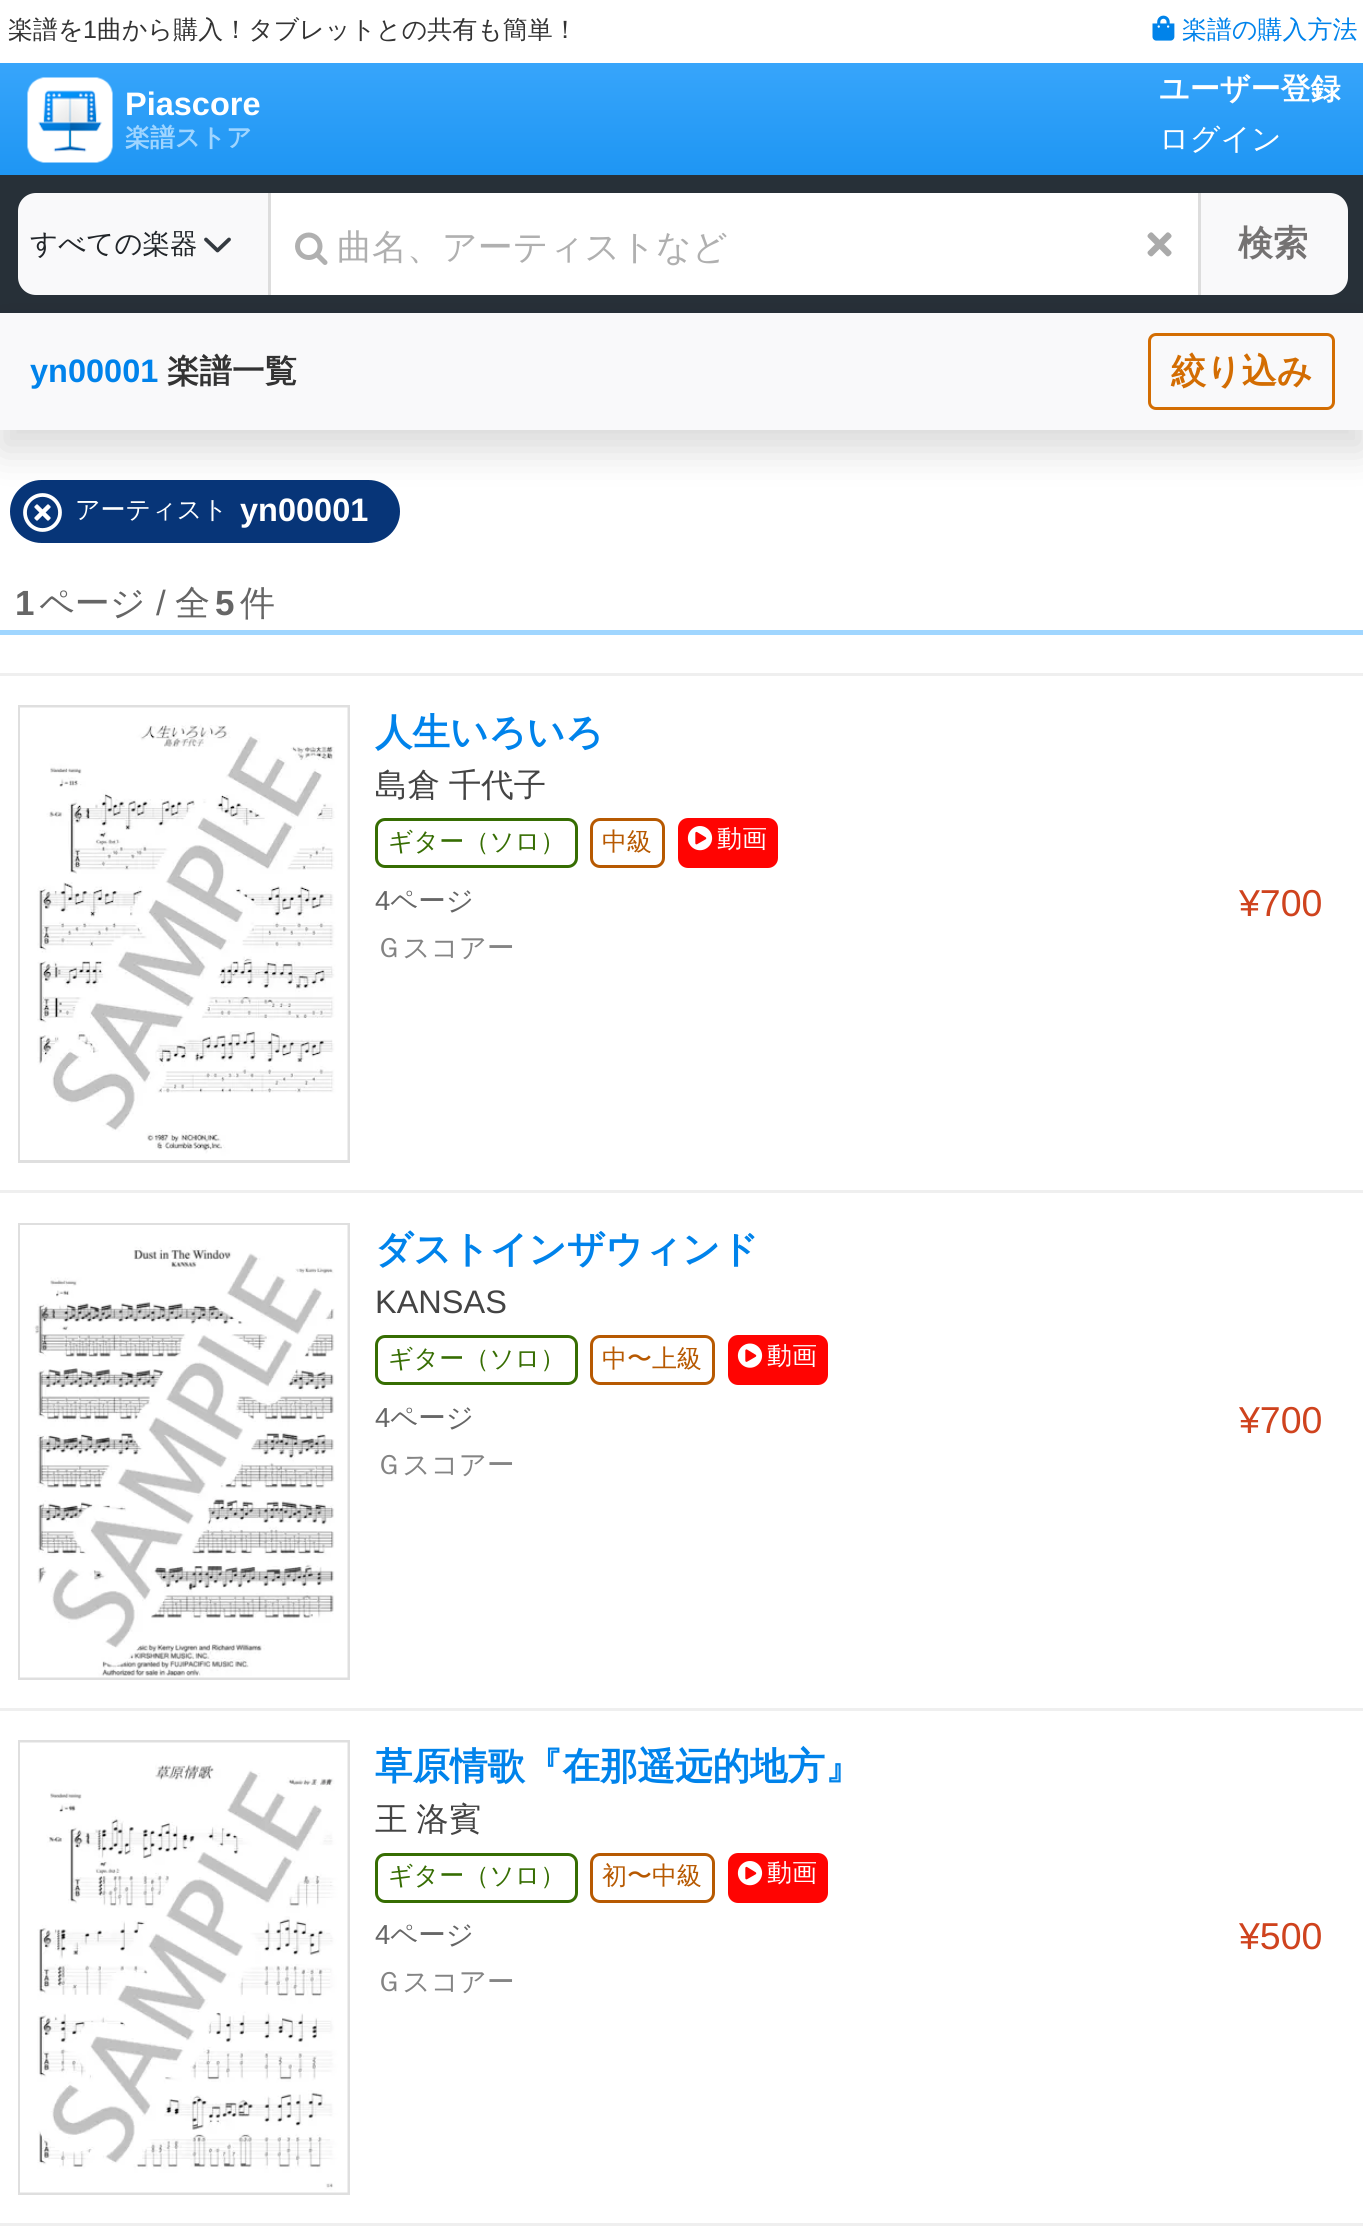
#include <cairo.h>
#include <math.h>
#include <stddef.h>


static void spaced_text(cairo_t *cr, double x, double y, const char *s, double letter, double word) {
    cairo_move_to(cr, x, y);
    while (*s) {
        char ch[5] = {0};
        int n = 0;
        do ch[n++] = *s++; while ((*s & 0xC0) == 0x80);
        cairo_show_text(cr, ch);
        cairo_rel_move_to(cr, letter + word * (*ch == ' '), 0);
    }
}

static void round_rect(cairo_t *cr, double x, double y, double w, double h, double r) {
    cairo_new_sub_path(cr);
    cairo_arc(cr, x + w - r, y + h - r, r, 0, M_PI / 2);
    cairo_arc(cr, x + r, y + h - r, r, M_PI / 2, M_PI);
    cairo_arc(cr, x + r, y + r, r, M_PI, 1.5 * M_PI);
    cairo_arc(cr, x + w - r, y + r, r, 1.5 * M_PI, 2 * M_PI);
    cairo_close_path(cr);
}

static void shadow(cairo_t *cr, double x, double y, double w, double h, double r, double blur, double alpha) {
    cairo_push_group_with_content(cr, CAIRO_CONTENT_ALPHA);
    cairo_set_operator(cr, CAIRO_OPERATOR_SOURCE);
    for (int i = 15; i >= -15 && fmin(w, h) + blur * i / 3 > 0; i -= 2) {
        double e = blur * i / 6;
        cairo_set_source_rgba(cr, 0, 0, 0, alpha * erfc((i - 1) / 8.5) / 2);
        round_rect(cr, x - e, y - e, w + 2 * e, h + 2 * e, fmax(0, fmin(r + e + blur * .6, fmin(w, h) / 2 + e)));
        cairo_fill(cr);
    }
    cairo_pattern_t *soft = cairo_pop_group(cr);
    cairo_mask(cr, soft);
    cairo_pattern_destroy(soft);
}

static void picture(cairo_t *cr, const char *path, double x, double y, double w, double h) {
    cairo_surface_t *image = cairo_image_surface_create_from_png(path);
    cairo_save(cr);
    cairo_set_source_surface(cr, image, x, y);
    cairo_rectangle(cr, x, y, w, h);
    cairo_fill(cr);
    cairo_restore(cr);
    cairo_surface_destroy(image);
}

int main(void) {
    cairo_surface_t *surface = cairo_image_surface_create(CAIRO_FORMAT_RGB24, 1363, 2236);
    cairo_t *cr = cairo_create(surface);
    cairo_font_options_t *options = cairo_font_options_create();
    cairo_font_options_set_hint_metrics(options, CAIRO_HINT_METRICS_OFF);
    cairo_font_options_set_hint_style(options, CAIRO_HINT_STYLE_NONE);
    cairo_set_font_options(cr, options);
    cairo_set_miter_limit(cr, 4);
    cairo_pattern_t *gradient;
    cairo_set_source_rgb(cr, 1, 1, 1);
    cairo_paint(cr);
    cairo_select_font_face(cr, "WenQuanYi Zen Hei Medium", CAIRO_FONT_SLANT_NORMAL, CAIRO_FONT_WEIGHT_NORMAL);
    cairo_set_font_size(cr, 25);
    cairo_set_source_rgb(cr, 0.2, 0.2, 0.2);
    cairo_move_to(cr, 8, 38);
    cairo_show_text(cr, "楽譜を");
    cairo_select_font_face(cr, "Liberation Sans", CAIRO_FONT_SLANT_NORMAL, CAIRO_FONT_WEIGHT_NORMAL);
    cairo_move_to(cr, 83, 38);
    cairo_show_text(cr, "1");
    cairo_select_font_face(cr, "WenQuanYi Zen Hei Medium", CAIRO_FONT_SLANT_NORMAL, CAIRO_FONT_WEIGHT_NORMAL);
    cairo_move_to(cr, 97, 38);
    cairo_show_text(cr, "曲から購入！タブレットとの共有も簡単！");
    picture(cr, "img1.png", 1152, 15, 23, 26);
    cairo_set_source_rgb(cr, 0, 0.514, 0.918);
    cairo_move_to(cr, 1182, 38);
    cairo_show_text(cr, "楽譜の購入方法");
    gradient = cairo_pattern_create_linear(683, 62, 683, 313);
    cairo_pattern_add_color_stop_rgba(gradient, 0, 0.216, 0.647, 0.984, 1);
    cairo_pattern_add_color_stop_rgba(gradient, 1, 0, 0.514, 0.918, 1);
    cairo_set_source(cr, gradient);
    cairo_pattern_destroy(gradient);
    cairo_rectangle(cr, 0, 63, 1363, 112);
    cairo_fill(cr);
    picture(cr, "img2.png", 27, 77, 86, 86);
    cairo_select_font_face(cr, "Liberation Sans", CAIRO_FONT_SLANT_NORMAL, CAIRO_FONT_WEIGHT_BOLD);
    cairo_set_font_size(cr, 32.5);
    cairo_set_source_rgb(cr, 1, 1, 1);
    cairo_move_to(cr, 125, 115);
    cairo_show_text(cr, "Piascore");
    cairo_select_font_face(cr, "WenQuanYi Zen Hei", CAIRO_FONT_SLANT_NORMAL, CAIRO_FONT_WEIGHT_BOLD);
    cairo_set_font_size(cr, 25);
    cairo_set_source_rgb(cr, 0.624, 0.835, 1);
    cairo_move_to(cr, 125, 146);
    cairo_show_text(cr, "楽譜ストア");
    cairo_set_font_size(cr, 30);
    cairo_set_source_rgb(cr, 1, 1, 1);
    cairo_move_to(cr, 1159, 99);
    cairo_show_text(cr, "ユーザー登録");
    cairo_select_font_face(cr, "WenQuanYi Zen Hei Medium", CAIRO_FONT_SLANT_NORMAL, CAIRO_FONT_WEIGHT_NORMAL);
    cairo_move_to(cr, 1159, 149);
    cairo_show_text(cr, "ログイン");
    cairo_set_source_rgb(cr, 0.153, 0.188, 0.22);
    cairo_rectangle(cr, 0, 175, 1363, 138);
    cairo_fill(cr);
    cairo_set_source_rgb(cr, 0.973, 0.976, 0.98);
    cairo_new_path(cr);
    cairo_move_to(cr, 36, 193);
    cairo_line_to(cr, 268, 193);
    cairo_line_to(cr, 268, 295);
    cairo_line_to(cr, 36, 295);
    cairo_curve_to(cr, 26, 295, 18, 287, 18, 277);
    cairo_line_to(cr, 18, 211);
    cairo_curve_to(cr, 18, 201, 26, 193, 36, 193);
    cairo_close_path(cr);
    cairo_fill(cr);
    cairo_new_path(cr);
    cairo_move_to(cr, 206, 239.5);
    cairo_line_to(cr, 217.5, 250.5);
    cairo_line_to(cr, 229, 239.5);
    cairo_set_source_rgb(cr, 0.204, 0.227, 0.251);
    cairo_set_line_width(cr, 3.8);
    cairo_set_line_cap(cr, CAIRO_LINE_CAP_ROUND);
    cairo_set_line_join(cr, CAIRO_LINE_JOIN_ROUND);
    cairo_stroke(cr);
    cairo_set_font_size(cr, 27.5);
    cairo_set_source_rgb(cr, 0.129, 0.145, 0.161);
    cairo_move_to(cr, 30, 253);
    cairo_show_text(cr, "すべての楽器");
    cairo_set_source_rgb(cr, 1, 1, 1);
    cairo_rectangle(cr, 271, 193, 927, 102);
    cairo_fill(cr);
    cairo_set_source_rgb(cr, 0.867, 0.867, 0.867);
    cairo_rectangle(cr, 268, 193, 3, 102);
    cairo_fill(cr);
    picture(cr, "img3.png", 295, 232, 33, 33);
    cairo_set_font_size(cr, 35);
    cairo_set_source_rgb(cr, 0.69, 0.69, 0.69);
    cairo_move_to(cr, 337, 259);
    cairo_show_text(cr, "曲名、アーティストなど");
    picture(cr, "img4.png", 1147, 232, 25, 25);
    cairo_set_source_rgb(cr, 0.973, 0.976, 0.98);
    cairo_new_path(cr);
    cairo_move_to(cr, 1198, 193);
    cairo_line_to(cr, 1330, 193);
    cairo_curve_to(cr, 1340, 193, 1348, 201, 1348, 211);
    cairo_line_to(cr, 1348, 277);
    cairo_curve_to(cr, 1348, 287, 1340, 295, 1330, 295);
    cairo_line_to(cr, 1198, 295);
    cairo_close_path(cr);
    cairo_fill(cr);
    cairo_set_source_rgb(cr, 0.867, 0.867, 0.867);
    cairo_rectangle(cr, 1198, 193, 3, 102);
    cairo_fill(cr);
    cairo_select_font_face(cr, "WenQuanYi Zen Hei", CAIRO_FONT_SLANT_NORMAL, CAIRO_FONT_WEIGHT_BOLD);
    cairo_set_source_rgb(cr, 0.455, 0.447, 0.447);
    cairo_move_to(cr, 1238, 255);
    cairo_show_text(cr, "検索");
    cairo_set_source_rgb(cr, 0.031, 0.208, 0.471);
    round_rect(cr, 10, 480, 390, 63, 31.5);
    cairo_fill(cr);
    picture(cr, "img5.png", 23, 493, 39, 39);
    cairo_set_source_rgb(cr, 0, 0, 0);
    shadow(cr, 0, 333, 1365, 117, 0, 20, 0.15);
    cairo_set_source_rgb(cr, 0.973, 0.976, 0.98);
    cairo_rectangle(cr, 0, 313, 1363, 117);
    cairo_fill(cr);
    cairo_select_font_face(cr, "Liberation Sans", CAIRO_FONT_SLANT_NORMAL, CAIRO_FONT_WEIGHT_BOLD);
    cairo_set_font_size(cr, 32.5);
    cairo_set_source_rgb(cr, 0, 0.514, 0.918);
    cairo_move_to(cr, 30, 382);
    cairo_show_text(cr, "yn00001");
    cairo_select_font_face(cr, "WenQuanYi Zen Hei", CAIRO_FONT_SLANT_NORMAL, CAIRO_FONT_WEIGHT_BOLD);
    cairo_set_source_rgb(cr, 0.2, 0.2, 0.2);
    cairo_move_to(cr, 167, 382);
    cairo_show_text(cr, "楽譜一覧");
    round_rect(cr, 1149.5, 334.5, 184, 74, 6.5);
    cairo_set_source_rgb(cr, 0.827, 0.427, 0.008);
    cairo_set_line_width(cr, 3);
    cairo_set_line_cap(cr, CAIRO_LINE_CAP_BUTT);
    cairo_set_line_join(cr, CAIRO_LINE_JOIN_MITER);
    cairo_stroke(cr);
    cairo_set_font_size(cr, 35);
    cairo_move_to(cr, 1171, 383);
    cairo_show_text(cr, "絞り込み");
    cairo_select_font_face(cr, "WenQuanYi Zen Hei Medium", CAIRO_FONT_SLANT_NORMAL, CAIRO_FONT_WEIGHT_NORMAL);
    cairo_set_font_size(cr, 25);
    cairo_set_source_rgb(cr, 1, 1, 1);
    cairo_move_to(cr, 75, 518);
    cairo_show_text(cr, "アーティスト");
    cairo_select_font_face(cr, "Liberation Sans", CAIRO_FONT_SLANT_NORMAL, CAIRO_FONT_WEIGHT_BOLD);
    cairo_set_font_size(cr, 32.5);
    cairo_move_to(cr, 240, 521);
    cairo_show_text(cr, "yn00001");
    cairo_set_font_size(cr, 35);
    cairo_set_source_rgb(cr, 0.4, 0.4, 0.4);
    cairo_move_to(cr, 15, 615);
    cairo_show_text(cr, "1");
    cairo_select_font_face(cr, "WenQuanYi Zen Hei Medium", CAIRO_FONT_SLANT_NORMAL, CAIRO_FONT_WEIGHT_NORMAL);
    cairo_move_to(cr, 39, 615);
    cairo_show_text(cr, "ページ");
    cairo_select_font_face(cr, "Liberation Sans", CAIRO_FONT_SLANT_NORMAL, CAIRO_FONT_WEIGHT_NORMAL);
    cairo_move_to(cr, 156, 615);
    cairo_show_text(cr, "/");
    cairo_select_font_face(cr, "WenQuanYi Zen Hei Medium", CAIRO_FONT_SLANT_NORMAL, CAIRO_FONT_WEIGHT_NORMAL);
    cairo_move_to(cr, 175, 615);
    cairo_show_text(cr, "全");
    cairo_select_font_face(cr, "Liberation Sans", CAIRO_FONT_SLANT_NORMAL, CAIRO_FONT_WEIGHT_BOLD);
    cairo_move_to(cr, 215, 615);
    cairo_show_text(cr, "5");
    cairo_select_font_face(cr, "WenQuanYi Zen Hei Medium", CAIRO_FONT_SLANT_NORMAL, CAIRO_FONT_WEIGHT_NORMAL);
    cairo_move_to(cr, 240, 615);
    cairo_show_text(cr, "件");
    cairo_set_source_rgb(cr, 0.627, 0.839, 1);
    cairo_rectangle(cr, 0, 630, 1363, 5);
    cairo_fill(cr);
    cairo_set_source_rgb(cr, 0.937, 0.937, 0.937);
    cairo_rectangle(cr, 0, 673, 1363, 3);
    cairo_fill(cr);
    cairo_rectangle(cr, 19.5, 706.5, 329, 455);
    cairo_set_source_rgb(cr, 0.875, 0.875, 0.875);
    cairo_stroke(cr);
    picture(cr, "img6.png", 20, 707, 328, 453);
    cairo_select_font_face(cr, "WenQuanYi Zen Hei", CAIRO_FONT_SLANT_NORMAL, CAIRO_FONT_WEIGHT_BOLD);
    cairo_set_font_size(cr, 37.5);
    cairo_set_source_rgb(cr, 0, 0.514, 0.918);
    cairo_move_to(cr, 375, 745);
    cairo_show_text(cr, "人生いろいろ");
    cairo_select_font_face(cr, "WenQuanYi Zen Hei Medium", CAIRO_FONT_SLANT_NORMAL, CAIRO_FONT_WEIGHT_NORMAL);
    cairo_set_font_size(cr, 32.5);
    cairo_set_source_rgb(cr, 0.267, 0.267, 0.267);
    spaced_text(cr, 375, 796, "島倉 千代子", 0, -1);
    round_rect(cr, 376.5, 819.5, 200, 47, 8.5);
    cairo_set_source_rgb(cr, 0.212, 0.427, 0.008);
    cairo_stroke(cr);
    cairo_set_font_size(cr, 25);
    cairo_move_to(cr, 388, 850);
    cairo_show_text(cr, "ギター（ソロ）");
    round_rect(cr, 591.5, 819.5, 72, 47, 8.5);
    cairo_set_source_rgb(cr, 0.718, 0.349, 0.004);
    cairo_stroke(cr);
    cairo_move_to(cr, 602, 850);
    cairo_show_text(cr, "中級");
    cairo_set_source_rgb(cr, 1, 0.016, 0.008);
    round_rect(cr, 678, 818, 100, 50, 10);
    cairo_fill(cr);
    picture(cr, "img7.png", 687, 826, 26, 25);
    cairo_set_source_rgb(cr, 1, 1, 1);
    cairo_move_to(cr, 717, 847);
    cairo_show_text(cr, "動画");
    cairo_select_font_face(cr, "Liberation Sans", CAIRO_FONT_SLANT_NORMAL, CAIRO_FONT_WEIGHT_NORMAL);
    cairo_set_font_size(cr, 27.5);
    cairo_set_source_rgb(cr, 0.4, 0.4, 0.4);
    cairo_move_to(cr, 375, 910);
    cairo_show_text(cr, "4");
    cairo_select_font_face(cr, "WenQuanYi Zen Hei Medium", CAIRO_FONT_SLANT_NORMAL, CAIRO_FONT_WEIGHT_NORMAL);
    cairo_move_to(cr, 390, 910);
    cairo_show_text(cr, "ページ");
    cairo_select_font_face(cr, "Liberation Sans", CAIRO_FONT_SLANT_NORMAL, CAIRO_FONT_WEIGHT_NORMAL);
    cairo_set_font_size(cr, 37.5);
    cairo_set_source_rgb(cr, 0.812, 0.263, 0.118);
    cairo_move_to(cr, 1239, 916);
    cairo_show_text(cr, "¥700");
    cairo_select_font_face(cr, "WenQuanYi Zen Hei Medium", CAIRO_FONT_SLANT_NORMAL, CAIRO_FONT_WEIGHT_NORMAL);
    cairo_set_font_size(cr, 27.5);
    cairo_set_source_rgb(cr, 0.518, 0.518, 0.518);
    cairo_move_to(cr, 375, 957);
    cairo_show_text(cr, "Ｇスコアー");
    cairo_set_source_rgb(cr, 0.937, 0.937, 0.937);
    cairo_rectangle(cr, 0, 1190, 1363, 3);
    cairo_fill(cr);
    cairo_rectangle(cr, 19.5, 1224.5, 329, 454);
    cairo_set_source_rgb(cr, 0.875, 0.875, 0.875);
    cairo_stroke(cr);
    picture(cr, "img8.png", 20, 1225, 328, 453);
    cairo_select_font_face(cr, "WenQuanYi Zen Hei", CAIRO_FONT_SLANT_NORMAL, CAIRO_FONT_WEIGHT_BOLD);
    cairo_set_font_size(cr, 37.5);
    cairo_set_source_rgb(cr, 0, 0.514, 0.918);
    cairo_move_to(cr, 375, 1262);
    cairo_show_text(cr, "ダストインザウィンド");
    cairo_select_font_face(cr, "Liberation Sans", CAIRO_FONT_SLANT_NORMAL, CAIRO_FONT_WEIGHT_NORMAL);
    cairo_set_font_size(cr, 32.5);
    cairo_set_source_rgb(cr, 0.267, 0.267, 0.267);
    cairo_move_to(cr, 375, 1313);
    cairo_show_text(cr, "KANSAS");
    round_rect(cr, 376.5, 1336.5, 200, 47, 8.5);
    cairo_set_source_rgb(cr, 0.212, 0.427, 0.008);
    cairo_stroke(cr);
    cairo_select_font_face(cr, "WenQuanYi Zen Hei Medium", CAIRO_FONT_SLANT_NORMAL, CAIRO_FONT_WEIGHT_NORMAL);
    cairo_set_font_size(cr, 25);
    cairo_move_to(cr, 388, 1367);
    cairo_show_text(cr, "ギター（ソロ）");
    round_rect(cr, 591.5, 1336.5, 122, 47, 8.5);
    cairo_set_source_rgb(cr, 0.718, 0.349, 0.004);
    cairo_stroke(cr);
    cairo_move_to(cr, 602, 1367);
    cairo_show_text(cr, "中〜上級");
    cairo_set_source_rgb(cr, 1, 0.016, 0.008);
    round_rect(cr, 728, 1335, 100, 50, 10);
    cairo_fill(cr);
    picture(cr, "img9.png", 737, 1343, 26, 25);
    cairo_set_source_rgb(cr, 1, 1, 1);
    cairo_move_to(cr, 767, 1364);
    cairo_show_text(cr, "動画");
    cairo_select_font_face(cr, "Liberation Sans", CAIRO_FONT_SLANT_NORMAL, CAIRO_FONT_WEIGHT_NORMAL);
    cairo_set_font_size(cr, 27.5);
    cairo_set_source_rgb(cr, 0.4, 0.4, 0.4);
    cairo_move_to(cr, 375, 1427);
    cairo_show_text(cr, "4");
    cairo_select_font_face(cr, "WenQuanYi Zen Hei Medium", CAIRO_FONT_SLANT_NORMAL, CAIRO_FONT_WEIGHT_NORMAL);
    cairo_move_to(cr, 390, 1427);
    cairo_show_text(cr, "ページ");
    cairo_select_font_face(cr, "Liberation Sans", CAIRO_FONT_SLANT_NORMAL, CAIRO_FONT_WEIGHT_NORMAL);
    cairo_set_font_size(cr, 37.5);
    cairo_set_source_rgb(cr, 0.812, 0.263, 0.118);
    cairo_move_to(cr, 1239, 1433);
    cairo_show_text(cr, "¥700");
    cairo_select_font_face(cr, "WenQuanYi Zen Hei Medium", CAIRO_FONT_SLANT_NORMAL, CAIRO_FONT_WEIGHT_NORMAL);
    cairo_set_font_size(cr, 27.5);
    cairo_set_source_rgb(cr, 0.518, 0.518, 0.518);
    cairo_move_to(cr, 375, 1474);
    cairo_show_text(cr, "Ｇスコアー");
    cairo_set_source_rgb(cr, 0.937, 0.937, 0.937);
    cairo_rectangle(cr, 0, 1708, 1363, 3);
    cairo_fill(cr);
    cairo_rectangle(cr, 19.5, 1741.5, 329, 452);
    cairo_set_source_rgb(cr, 0.875, 0.875, 0.875);
    cairo_stroke(cr);
    picture(cr, "img10.png", 20, 1742, 328, 451);
    cairo_select_font_face(cr, "WenQuanYi Zen Hei", CAIRO_FONT_SLANT_NORMAL, CAIRO_FONT_WEIGHT_BOLD);
    cairo_set_font_size(cr, 37.5);
    cairo_set_source_rgb(cr, 0, 0.514, 0.918);
    cairo_move_to(cr, 375, 1779);
    cairo_show_text(cr, "草原情歌『在那遥远的地方』");
    cairo_select_font_face(cr, "WenQuanYi Zen Hei Medium", CAIRO_FONT_SLANT_NORMAL, CAIRO_FONT_WEIGHT_NORMAL);
    cairo_set_font_size(cr, 32.5);
    cairo_set_source_rgb(cr, 0.267, 0.267, 0.267);
    spaced_text(cr, 375, 1830, "王 洛賓", 0, -1);
    round_rect(cr, 376.5, 1854.5, 200, 47, 8.5);
    cairo_set_source_rgb(cr, 0.212, 0.427, 0.008);
    cairo_stroke(cr);
    cairo_set_font_size(cr, 25);
    cairo_move_to(cr, 388, 1884);
    cairo_show_text(cr, "ギター（ソロ）");
    round_rect(cr, 591.5, 1854.5, 122, 47, 8.5);
    cairo_set_source_rgb(cr, 0.718, 0.349, 0.004);
    cairo_stroke(cr);
    cairo_move_to(cr, 602, 1884);
    cairo_show_text(cr, "初〜中級");
    cairo_set_source_rgb(cr, 1, 0.016, 0.008);
    round_rect(cr, 728, 1853, 100, 50, 10);
    cairo_fill(cr);
    picture(cr, "img7.png", 737, 1861, 26, 25);
    cairo_set_source_rgb(cr, 1, 1, 1);
    cairo_move_to(cr, 767, 1881);
    cairo_show_text(cr, "動画");
    cairo_select_font_face(cr, "Liberation Sans", CAIRO_FONT_SLANT_NORMAL, CAIRO_FONT_WEIGHT_NORMAL);
    cairo_set_font_size(cr, 27.5);
    cairo_set_source_rgb(cr, 0.4, 0.4, 0.4);
    cairo_move_to(cr, 375, 1944);
    cairo_show_text(cr, "4");
    cairo_select_font_face(cr, "WenQuanYi Zen Hei Medium", CAIRO_FONT_SLANT_NORMAL, CAIRO_FONT_WEIGHT_NORMAL);
    cairo_move_to(cr, 390, 1944);
    cairo_show_text(cr, "ページ");
    cairo_select_font_face(cr, "Liberation Sans", CAIRO_FONT_SLANT_NORMAL, CAIRO_FONT_WEIGHT_NORMAL);
    cairo_set_font_size(cr, 37.5);
    cairo_set_source_rgb(cr, 0.812, 0.263, 0.118);
    cairo_move_to(cr, 1239, 1949);
    cairo_show_text(cr, "¥500");
    cairo_select_font_face(cr, "WenQuanYi Zen Hei Medium", CAIRO_FONT_SLANT_NORMAL, CAIRO_FONT_WEIGHT_NORMAL);
    cairo_set_font_size(cr, 27.5);
    cairo_set_source_rgb(cr, 0.518, 0.518, 0.518);
    cairo_move_to(cr, 375, 1991);
    cairo_show_text(cr, "Ｇスコアー");
    cairo_set_source_rgb(cr, 0.937, 0.937, 0.937);
    cairo_rectangle(cr, 0, 2223, 1363, 3);
    cairo_fill(cr);
    cairo_surface_write_to_png(surface, "page.png");
    cairo_font_options_destroy(options);
    cairo_destroy(cr);
    cairo_surface_destroy(surface);
    return 0;
}
